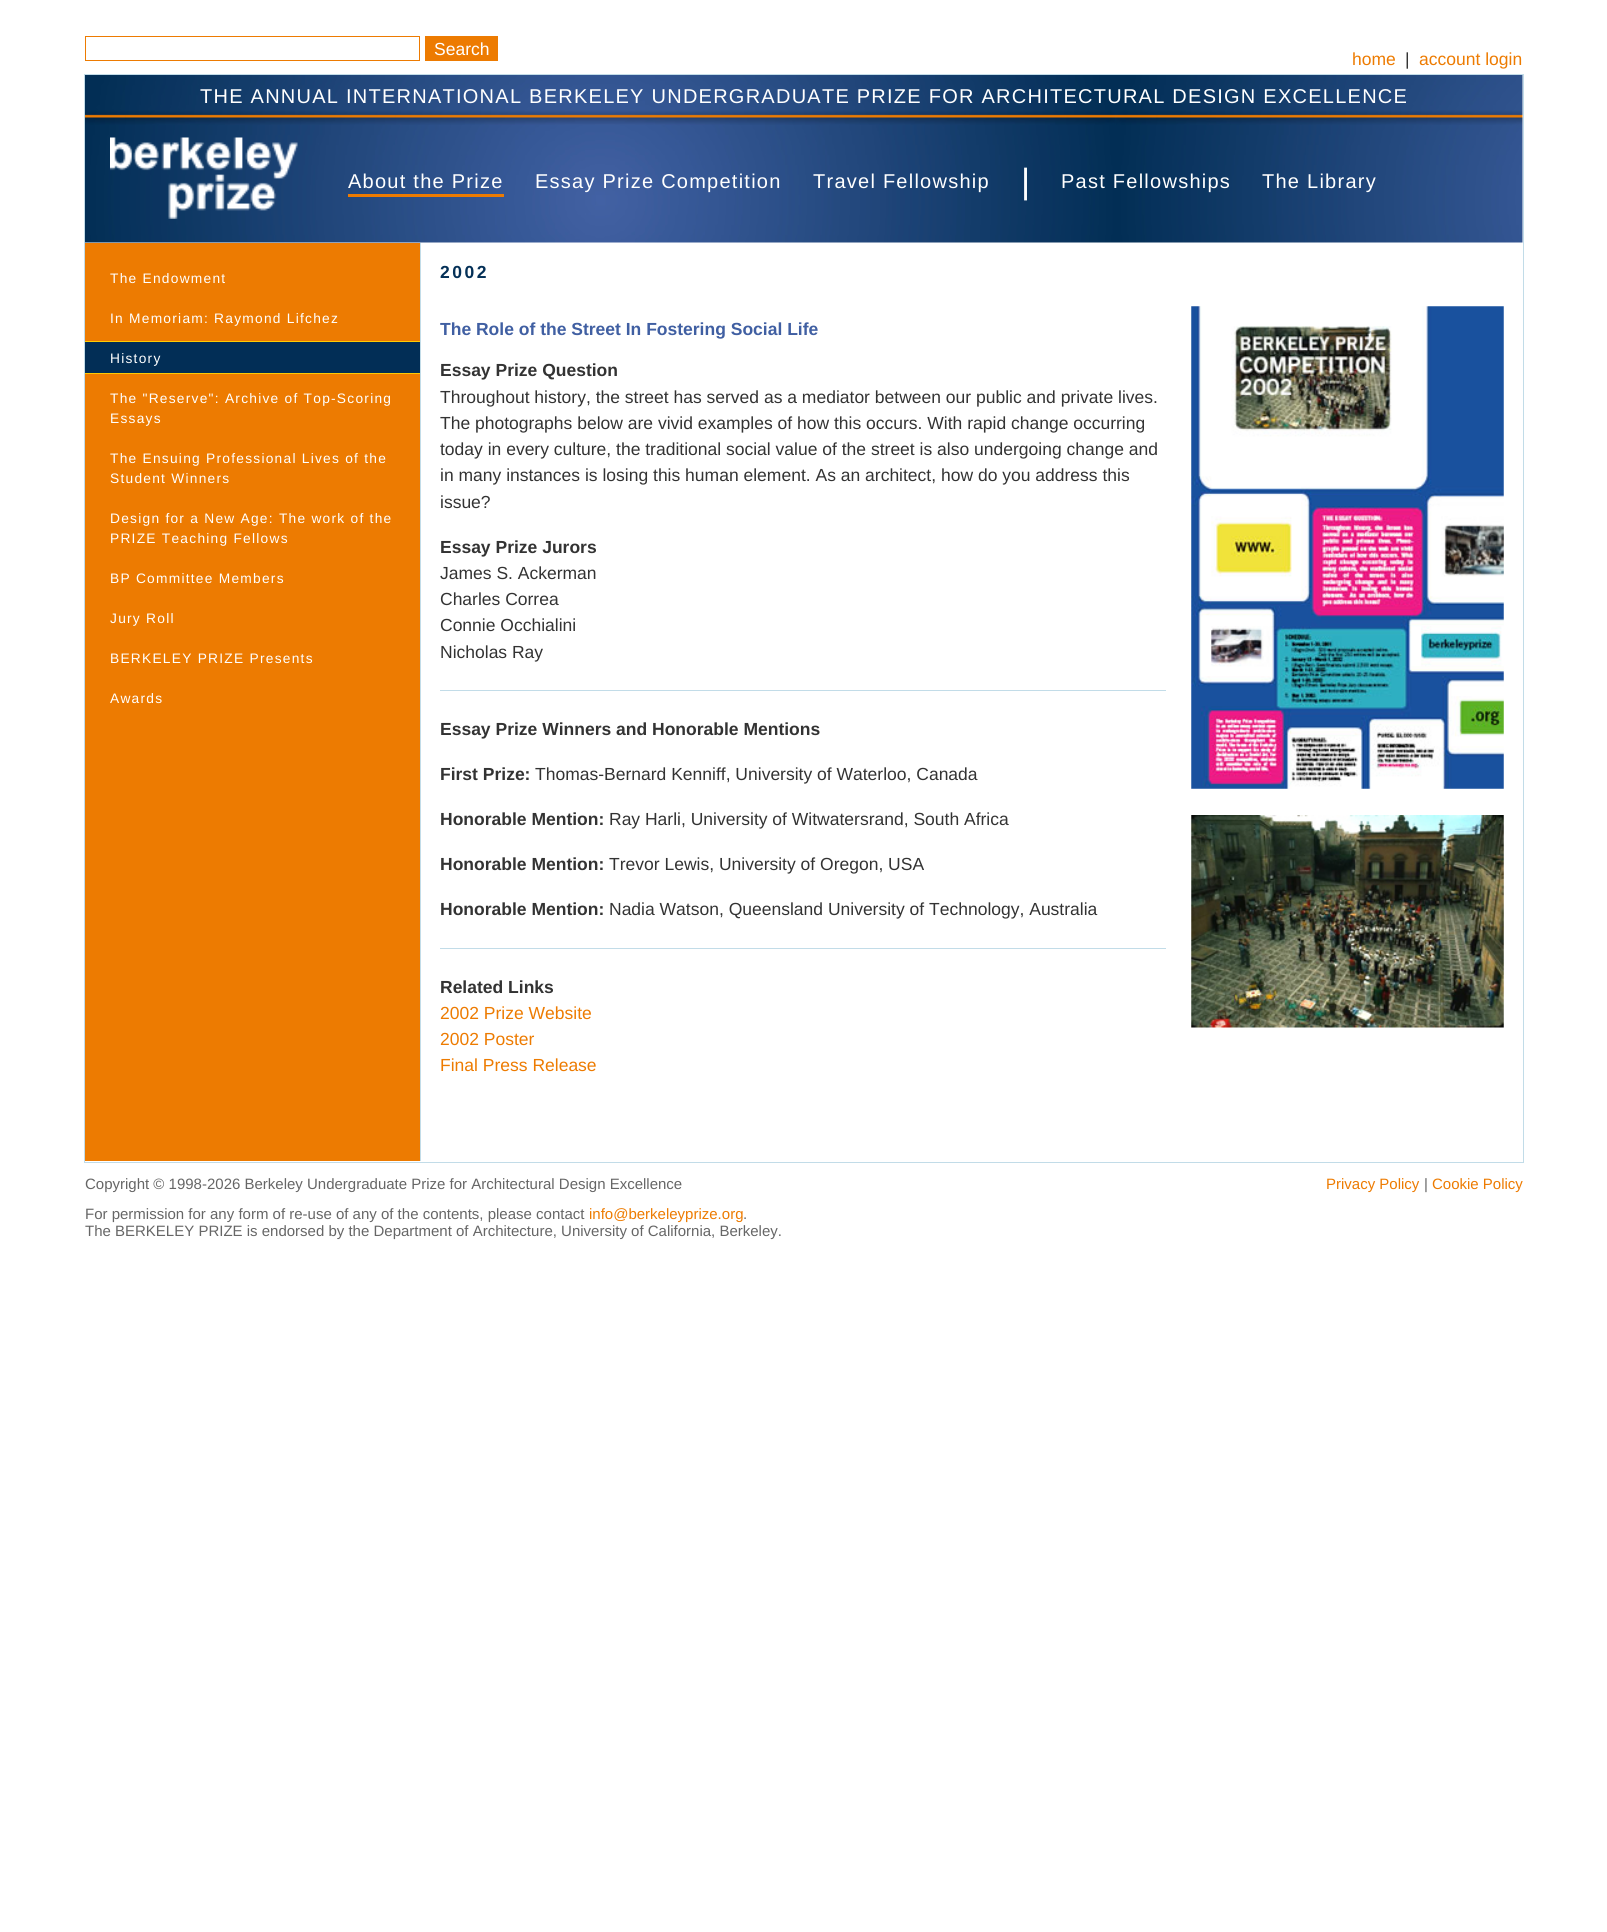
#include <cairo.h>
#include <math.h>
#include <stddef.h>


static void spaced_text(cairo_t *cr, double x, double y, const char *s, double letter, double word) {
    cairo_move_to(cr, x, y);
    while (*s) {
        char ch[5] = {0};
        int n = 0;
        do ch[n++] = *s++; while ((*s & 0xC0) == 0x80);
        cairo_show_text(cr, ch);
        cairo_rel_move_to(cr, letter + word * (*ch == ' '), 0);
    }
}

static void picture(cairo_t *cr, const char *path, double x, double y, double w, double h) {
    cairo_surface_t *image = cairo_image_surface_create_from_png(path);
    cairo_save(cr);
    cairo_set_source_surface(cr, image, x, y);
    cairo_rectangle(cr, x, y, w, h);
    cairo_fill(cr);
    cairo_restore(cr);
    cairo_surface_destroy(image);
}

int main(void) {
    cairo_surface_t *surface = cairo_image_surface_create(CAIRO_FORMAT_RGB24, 1607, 1932);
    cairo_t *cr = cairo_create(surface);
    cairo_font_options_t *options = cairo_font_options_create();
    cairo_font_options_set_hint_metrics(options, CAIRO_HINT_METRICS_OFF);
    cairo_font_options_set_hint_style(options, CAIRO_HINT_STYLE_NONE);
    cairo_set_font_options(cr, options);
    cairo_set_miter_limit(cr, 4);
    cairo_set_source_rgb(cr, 1, 1, 1);
    cairo_paint(cr);
    cairo_rectangle(cr, 85.5, 36.5, 334, 24);
    cairo_set_source_rgb(cr, 0.929, 0.482, 0.004);
    cairo_set_line_width(cr, 1);
    cairo_stroke(cr);
    cairo_rectangle(cr, 425, 36, 73, 25);
    cairo_fill(cr);
    cairo_select_font_face(cr, "Liberation Sans", CAIRO_FONT_SLANT_NORMAL, CAIRO_FONT_WEIGHT_NORMAL);
    cairo_set_font_size(cr, 17.5);
    cairo_set_source_rgb(cr, 1, 1, 1);
    cairo_move_to(cr, 434, 55);
    cairo_show_text(cr, "Search");
    cairo_set_source_rgb(cr, 0.929, 0.482, 0.004);
    cairo_move_to(cr, 1352, 65);
    cairo_show_text(cr, "home");
    cairo_set_source_rgb(cr, 0.2, 0.2, 0.2);
    cairo_move_to(cr, 1405, 65);
    cairo_show_text(cr, "|");
    cairo_set_source_rgb(cr, 0.929, 0.482, 0.004);
    cairo_move_to(cr, 1419, 65);
    cairo_show_text(cr, "account login");
    cairo_rectangle(cr, 84.5, 74.5, 1439, 1088);
    cairo_set_source_rgb(cr, 0.761, 0.863, 0.91);
    cairo_stroke(cr);
    picture(cr, "img1.png", 85, 75, 1438, 168);
    cairo_set_font_size(cr, 20);
    cairo_set_source_rgb(cr, 1, 1, 1);
    spaced_text(cr, 200, 103, "THE ANNUAL INTERNATIONAL BERKELEY UNDERGRADUATE PRIZE FOR ARCHITECTURAL DESIGN EXCELLENCE", 1.25, 0);
    picture(cr, "img2.png", 110, 137, 188, 82);
    cairo_set_source_rgb(cr, 0.929, 0.482, 0.004);
    cairo_rectangle(cr, 348, 194, 156, 3);
    cairo_fill(cr);
    cairo_set_source_rgb(cr, 1, 1, 1);
    spaced_text(cr, 348, 188, "About the Prize", 1.25, 0);
    spaced_text(cr, 535, 188, "Essay Prize Competition", 1.25, 0);
    spaced_text(cr, 813, 188, "Travel Fellowship", 1.25, 0);
    cairo_set_font_size(cr, 35);
    cairo_move_to(cr, 1021, 193);
    cairo_show_text(cr, "|");
    cairo_set_font_size(cr, 20);
    spaced_text(cr, 1061, 188, "Past Fellowships", 1.25, 0);
    spaced_text(cr, 1262, 188, "The Library", 1.25, 0);
    cairo_set_source_rgb(cr, 0.929, 0.482, 0.004);
    cairo_rectangle(cr, 85, 243, 335, 918);
    cairo_fill(cr);
    cairo_set_source_rgb(cr, 0.761, 0.863, 0.91);
    cairo_rectangle(cr, 420, 243, 1, 918);
    cairo_fill(cr);
    cairo_set_font_size(cr, 13.75);
    cairo_set_source_rgb(cr, 1, 1, 1);
    spaced_text(cr, 110, 283, "The Endowment", 1.25, 0);
    spaced_text(cr, 110, 323, "In Memoriam: Raymond Lifchez", 1.25, 0);
    cairo_set_source_rgb(cr, 0.008, 0.18, 0.337);
    cairo_rectangle(cr, 85, 342, 335, 31);
    cairo_fill(cr);
    cairo_set_source_rgb(cr, 1, 0.792, 0.008);
    cairo_rectangle(cr, 85, 341, 335, 1);
    cairo_fill(cr);
    cairo_rectangle(cr, 85, 373, 335, 1);
    cairo_fill(cr);
    cairo_set_source_rgb(cr, 1, 1, 1);
    spaced_text(cr, 110, 363, "History", 1.25, 0);
    spaced_text(cr, 110, 403, "The \"Reserve\": Archive of Top-Scoring", 1.25, 0);
    spaced_text(cr, 110, 423, "Essays", 1.25, 0);
    spaced_text(cr, 110, 463, "The Ensuing Professional Lives of the", 1.25, 0);
    spaced_text(cr, 110, 483, "Student Winners", 1.25, 0);
    spaced_text(cr, 110, 523, "Design for a New Age: The work of the", 1.25, 0);
    spaced_text(cr, 110, 543, "PRIZE Teaching Fellows", 1.25, 0);
    spaced_text(cr, 110, 583, "BP Committee Members", 1.25, 0);
    spaced_text(cr, 110, 623, "Jury Roll", 1.25, 0);
    spaced_text(cr, 110, 663, "BERKELEY PRIZE Presents", 1.25, 0);
    spaced_text(cr, 110, 703, "Awards", 1.25, 0);
    cairo_select_font_face(cr, "Liberation Sans", CAIRO_FONT_SLANT_NORMAL, CAIRO_FONT_WEIGHT_BOLD);
    cairo_set_font_size(cr, 17.5);
    cairo_set_source_rgb(cr, 0.016, 0.188, 0.341);
    spaced_text(cr, 440, 278, "2002", 2.5, 0);
    cairo_set_source_rgb(cr, 0.251, 0.373, 0.635);
    cairo_move_to(cr, 440, 335);
    cairo_show_text(cr, "The Role of the Street In Fostering Social Life");
    cairo_set_source_rgb(cr, 0.2, 0.2, 0.2);
    cairo_move_to(cr, 440, 376);
    cairo_show_text(cr, "Essay Prize Question");
    cairo_select_font_face(cr, "Liberation Sans", CAIRO_FONT_SLANT_NORMAL, CAIRO_FONT_WEIGHT_NORMAL);
    cairo_move_to(cr, 440, 403);
    cairo_show_text(cr, "Throughout history, the street has served as a mediator between our public and private lives.");
    cairo_move_to(cr, 440, 429);
    cairo_show_text(cr, "The photographs below are vivid examples of how this occurs. With rapid change occurring");
    cairo_move_to(cr, 440, 455);
    cairo_show_text(cr, "today in every culture, the traditional social value of the street is also undergoing change and");
    cairo_move_to(cr, 440, 481);
    cairo_show_text(cr, "in many instances is losing this human element. As an architect, how do you address this");
    cairo_move_to(cr, 440, 508);
    cairo_show_text(cr, "issue?");
    cairo_select_font_face(cr, "Liberation Sans", CAIRO_FONT_SLANT_NORMAL, CAIRO_FONT_WEIGHT_BOLD);
    cairo_move_to(cr, 440, 553);
    cairo_show_text(cr, "Essay Prize Jurors");
    cairo_select_font_face(cr, "Liberation Sans", CAIRO_FONT_SLANT_NORMAL, CAIRO_FONT_WEIGHT_NORMAL);
    cairo_move_to(cr, 440, 579);
    cairo_show_text(cr, "James S. Ackerman");
    cairo_move_to(cr, 440, 605);
    cairo_show_text(cr, "Charles Correa");
    cairo_move_to(cr, 440, 631);
    cairo_show_text(cr, "Connie Occhialini");
    cairo_move_to(cr, 440, 658);
    cairo_show_text(cr, "Nicholas Ray");
    cairo_set_source_rgb(cr, 0.761, 0.863, 0.91);
    cairo_rectangle(cr, 440, 690, 726, 1);
    cairo_fill(cr);
    cairo_select_font_face(cr, "Liberation Sans", CAIRO_FONT_SLANT_NORMAL, CAIRO_FONT_WEIGHT_BOLD);
    cairo_set_source_rgb(cr, 0.2, 0.2, 0.2);
    cairo_move_to(cr, 440, 735);
    cairo_show_text(cr, "Essay Prize Winners and Honorable Mentions");
    cairo_move_to(cr, 440, 780);
    cairo_show_text(cr, "First Prize:");
    cairo_select_font_face(cr, "Liberation Sans", CAIRO_FONT_SLANT_NORMAL, CAIRO_FONT_WEIGHT_NORMAL);
    cairo_move_to(cr, 535, 780);
    cairo_show_text(cr, "Thomas-Bernard Kenniff, University of Waterloo, Canada");
    cairo_select_font_face(cr, "Liberation Sans", CAIRO_FONT_SLANT_NORMAL, CAIRO_FONT_WEIGHT_BOLD);
    cairo_move_to(cr, 440, 825);
    cairo_show_text(cr, "Honorable Mention:");
    cairo_select_font_face(cr, "Liberation Sans", CAIRO_FONT_SLANT_NORMAL, CAIRO_FONT_WEIGHT_NORMAL);
    cairo_move_to(cr, 609, 825);
    cairo_show_text(cr, "Ray Harli, University of Witwatersrand, South Africa");
    cairo_select_font_face(cr, "Liberation Sans", CAIRO_FONT_SLANT_NORMAL, CAIRO_FONT_WEIGHT_BOLD);
    cairo_move_to(cr, 440, 870);
    cairo_show_text(cr, "Honorable Mention:");
    cairo_select_font_face(cr, "Liberation Sans", CAIRO_FONT_SLANT_NORMAL, CAIRO_FONT_WEIGHT_NORMAL);
    cairo_move_to(cr, 609, 870);
    cairo_show_text(cr, "Trevor Lewis, University of Oregon, USA");
    cairo_select_font_face(cr, "Liberation Sans", CAIRO_FONT_SLANT_NORMAL, CAIRO_FONT_WEIGHT_BOLD);
    cairo_move_to(cr, 440, 915);
    cairo_show_text(cr, "Honorable Mention:");
    cairo_select_font_face(cr, "Liberation Sans", CAIRO_FONT_SLANT_NORMAL, CAIRO_FONT_WEIGHT_NORMAL);
    cairo_move_to(cr, 609, 915);
    cairo_show_text(cr, "Nadia Watson, Queensland University of Technology, Australia");
    cairo_set_source_rgb(cr, 0.761, 0.863, 0.91);
    cairo_rectangle(cr, 440, 948, 726, 1);
    cairo_fill(cr);
    cairo_select_font_face(cr, "Liberation Sans", CAIRO_FONT_SLANT_NORMAL, CAIRO_FONT_WEIGHT_BOLD);
    cairo_set_source_rgb(cr, 0.2, 0.2, 0.2);
    cairo_move_to(cr, 440, 993);
    cairo_show_text(cr, "Related Links");
    cairo_select_font_face(cr, "Liberation Sans", CAIRO_FONT_SLANT_NORMAL, CAIRO_FONT_WEIGHT_NORMAL);
    cairo_set_source_rgb(cr, 0.929, 0.482, 0.004);
    cairo_move_to(cr, 440, 1019);
    cairo_show_text(cr, "2002 Prize Website");
    cairo_move_to(cr, 440, 1045);
    cairo_show_text(cr, "2002 Poster");
    cairo_move_to(cr, 440, 1071);
    cairo_show_text(cr, "Final Press Release");
    picture(cr, "img3.png", 1191, 306, 313, 483);
    picture(cr, "img4.png", 1191, 815, 313, 213);
    cairo_set_font_size(cr, 15);
    cairo_set_source_rgb(cr, 0.4, 0.4, 0.4);
    cairo_move_to(cr, 85, 1189);
    cairo_show_text(cr, "Copyright © 1998-2026 Berkeley Undergraduate Prize for Architectural Design Excellence");
    cairo_set_source_rgb(cr, 0.929, 0.482, 0.004);
    cairo_move_to(cr, 1326, 1189);
    cairo_show_text(cr, "Privacy Policy");
    cairo_set_source_rgb(cr, 0.4, 0.4, 0.4);
    cairo_move_to(cr, 1424, 1189);
    cairo_show_text(cr, "|");
    cairo_set_source_rgb(cr, 0.929, 0.482, 0.004);
    cairo_move_to(cr, 1432, 1189);
    cairo_show_text(cr, "Cookie Policy");
    cairo_set_source_rgb(cr, 0.4, 0.4, 0.4);
    cairo_move_to(cr, 85, 1219);
    cairo_show_text(cr, "For permission for any form of re-use of any of the contents, please contact");
    cairo_set_source_rgb(cr, 0.929, 0.482, 0.004);
    cairo_move_to(cr, 589, 1219);
    cairo_show_text(cr, "info@berkeleyprize.org");
    cairo_set_source_rgb(cr, 0.4, 0.4, 0.4);
    cairo_move_to(cr, 743, 1219);
    cairo_show_text(cr, ".");
    cairo_move_to(cr, 85, 1236);
    cairo_show_text(cr, "The BERKELEY PRIZE is endorsed by the Department of Architecture, University of California, Berkeley.");
    cairo_surface_write_to_png(surface, "page.png");
    cairo_font_options_destroy(options);
    cairo_destroy(cr);
    cairo_surface_destroy(surface);
    return 0;
}
